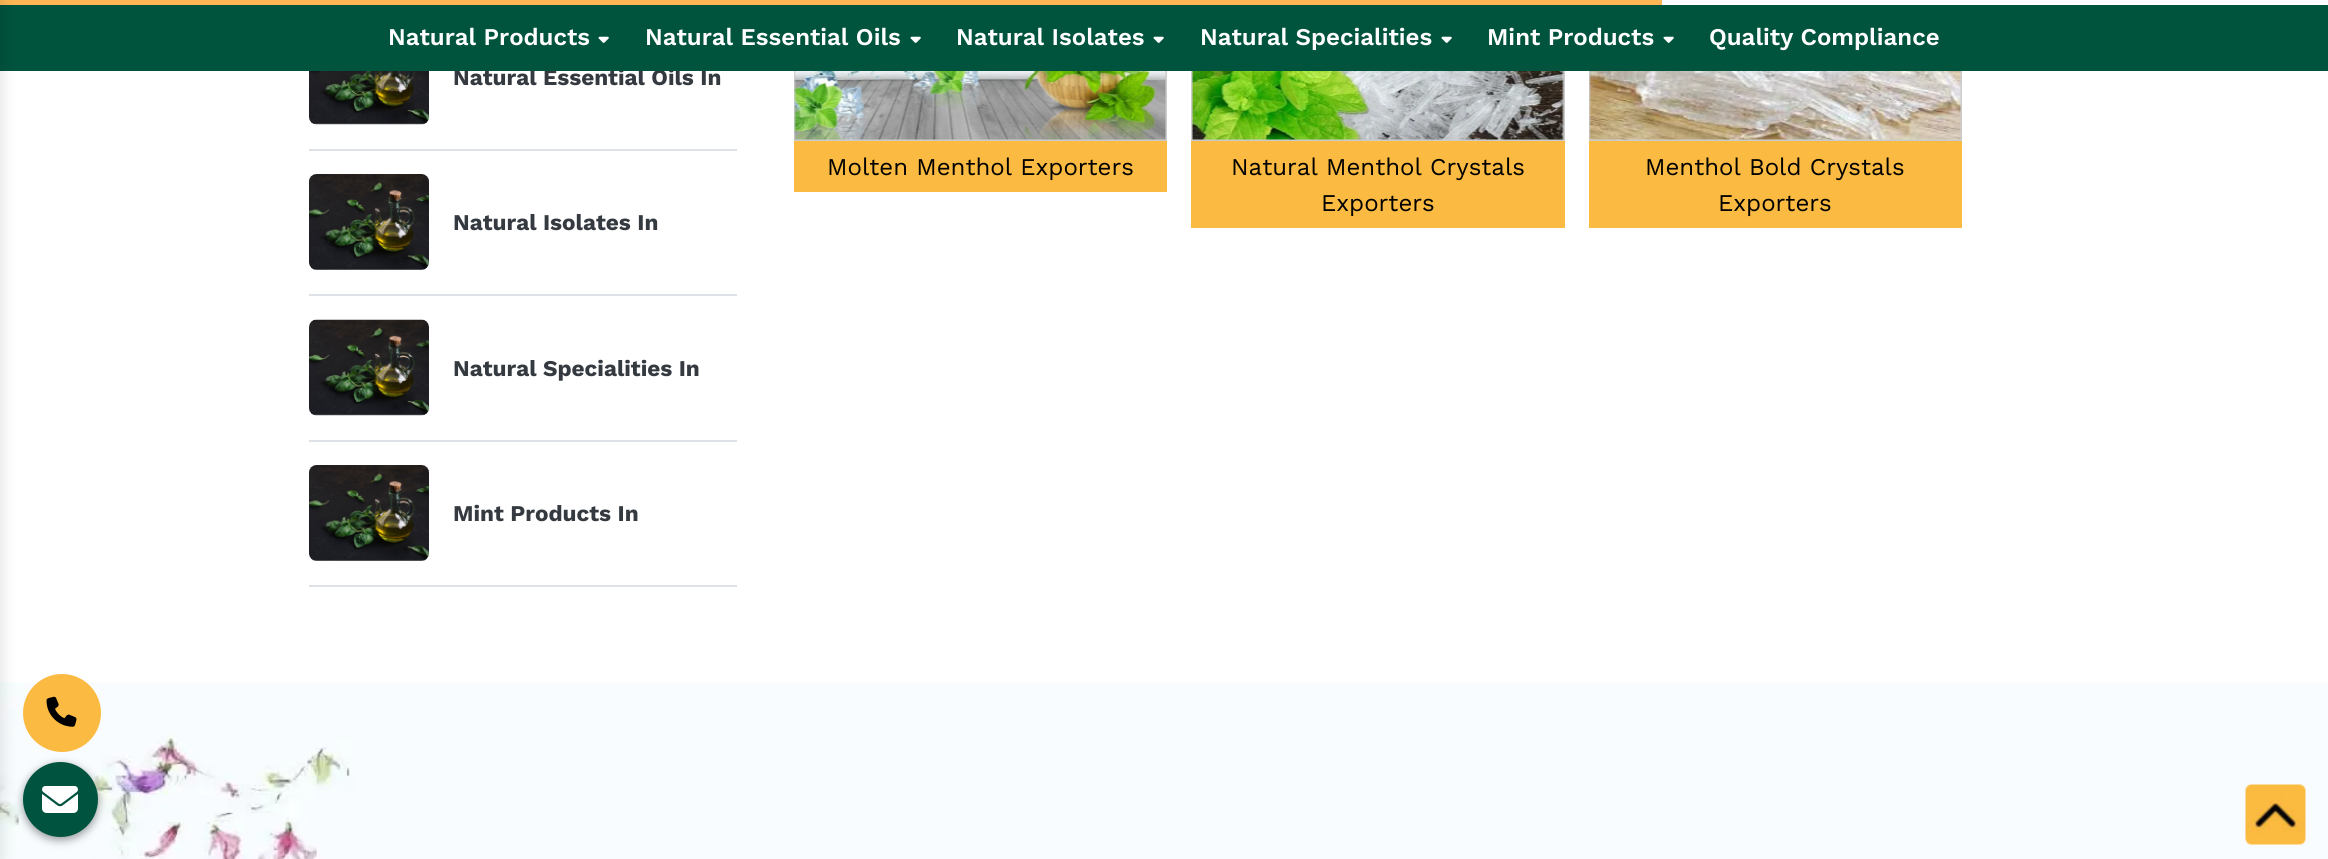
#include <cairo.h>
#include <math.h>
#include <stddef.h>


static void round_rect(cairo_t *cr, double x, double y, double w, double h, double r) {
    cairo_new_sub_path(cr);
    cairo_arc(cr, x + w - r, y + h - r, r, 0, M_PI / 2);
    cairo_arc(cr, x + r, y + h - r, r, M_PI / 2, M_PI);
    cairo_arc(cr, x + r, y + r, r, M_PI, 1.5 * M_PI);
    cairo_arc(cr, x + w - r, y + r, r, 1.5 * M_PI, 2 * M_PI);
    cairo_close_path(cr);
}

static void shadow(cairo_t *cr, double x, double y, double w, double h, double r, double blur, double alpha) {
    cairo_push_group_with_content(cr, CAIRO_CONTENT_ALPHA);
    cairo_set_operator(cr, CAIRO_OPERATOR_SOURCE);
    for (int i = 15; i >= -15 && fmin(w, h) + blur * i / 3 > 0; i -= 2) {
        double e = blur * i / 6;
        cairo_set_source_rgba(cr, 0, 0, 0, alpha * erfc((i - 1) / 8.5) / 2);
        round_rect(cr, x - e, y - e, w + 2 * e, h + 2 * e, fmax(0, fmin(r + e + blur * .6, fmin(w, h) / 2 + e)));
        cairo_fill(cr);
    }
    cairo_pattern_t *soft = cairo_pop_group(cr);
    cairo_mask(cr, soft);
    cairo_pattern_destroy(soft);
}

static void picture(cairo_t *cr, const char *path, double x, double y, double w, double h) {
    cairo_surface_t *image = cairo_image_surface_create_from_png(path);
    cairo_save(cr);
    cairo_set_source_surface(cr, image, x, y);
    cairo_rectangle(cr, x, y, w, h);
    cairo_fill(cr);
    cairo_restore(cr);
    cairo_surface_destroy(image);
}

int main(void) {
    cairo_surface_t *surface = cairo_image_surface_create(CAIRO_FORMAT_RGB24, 2328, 859);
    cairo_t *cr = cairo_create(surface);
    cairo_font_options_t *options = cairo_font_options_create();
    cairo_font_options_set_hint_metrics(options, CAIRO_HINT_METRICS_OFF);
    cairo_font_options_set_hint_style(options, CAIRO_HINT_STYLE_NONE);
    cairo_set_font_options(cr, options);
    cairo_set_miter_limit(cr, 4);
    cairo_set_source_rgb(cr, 1, 1, 1);
    cairo_paint(cr);
    cairo_select_font_face(cr, "Work Sans", CAIRO_FONT_SLANT_NORMAL, CAIRO_FONT_WEIGHT_BOLD);
    cairo_set_font_size(cr, 22.5);
    cairo_set_source_rgb(cr, 0.204, 0.227, 0.251);
    cairo_move_to(cr, 453, 85);
    cairo_show_text(cr, "Natural Essential Oils In");
    cairo_rectangle(cr, 795, -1, 371, 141);
    cairo_set_source_rgb(cr, 0.8, 0.8, 0.8);
    cairo_stroke(cr);
    cairo_rectangle(cr, 1192, -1, 372, 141);
    cairo_stroke(cr);
    cairo_rectangle(cr, 1590, -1, 371, 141);
    cairo_stroke(cr);
    cairo_set_source_rgb(cr, 0, 0.325, 0.239);
    cairo_rectangle(cr, 0, 5, 2328, 66);
    cairo_fill(cr);
    cairo_set_source_rgb(cr, 1, 0.718, 0.333);
    cairo_rectangle(cr, 0, 0, 1662, 5);
    cairo_fill(cr);
    picture(cr, "img9.png", 0, 682, 2328, 177);
    cairo_set_source_rgb(cr, 0.984, 0.729, 0.255);
    cairo_arc(cr, 62, 713, 39, 0, 2 * M_PI);
    cairo_fill(cr);
    cairo_set_source_rgb(cr, 0, 0, 0);
    shadow(cr, 23, 765, 75, 75, 37.5, 4.5, 0.4);
    cairo_set_source_rgb(cr, 0, 0.329, 0.247);
    cairo_arc(cr, 60.5, 799.5, 37.5, 0, 2 * M_PI);
    cairo_fill(cr);
    cairo_set_source_rgb(cr, 0, 0, 0);
    shadow(cr, -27, 0, 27, 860, 0, 9, 0.14);
    cairo_set_source_rgb(cr, 1, 1, 1);
    cairo_rectangle(cr, 1960, 0, 2, 5);
    cairo_fill(cr);
    cairo_select_font_face(cr, "Work Sans SemiBold", CAIRO_FONT_SLANT_NORMAL, CAIRO_FONT_WEIGHT_NORMAL);
    cairo_set_font_size(cr, 24);
    cairo_move_to(cr, 388, 45);
    cairo_show_text(cr, "Natural Products");
    picture(cr, "img1.png", 598, 36, 11, 7);
    cairo_move_to(cr, 645, 45);
    cairo_show_text(cr, "Natural Essential Oils");
    picture(cr, "img1.png", 910, 36, 11, 7);
    cairo_move_to(cr, 956, 45);
    cairo_show_text(cr, "Natural Isolates");
    picture(cr, "img1.png", 1153, 36, 11, 7);
    cairo_move_to(cr, 1200, 45);
    cairo_show_text(cr, "Natural Specialities");
    picture(cr, "img1.png", 1441, 36, 11, 7);
    cairo_move_to(cr, 1487, 45);
    cairo_show_text(cr, "Mint Products");
    picture(cr, "img1.png", 1663, 36, 11, 7);
    cairo_move_to(cr, 1709, 45);
    cairo_show_text(cr, "Quality Compliance");
    cairo_set_source_rgb(cr, 0.871, 0.886, 0.902);
    cairo_rectangle(cr, 309, 149, 428, 2);
    cairo_fill(cr);
    picture(cr, "img2.png", 309, 71, 120, 54);
    cairo_rectangle(cr, 309, 294, 428, 2);
    cairo_fill(cr);
    picture(cr, "img3.png", 309, 174, 120, 96);
    cairo_select_font_face(cr, "Work Sans", CAIRO_FONT_SLANT_NORMAL, CAIRO_FONT_WEIGHT_BOLD);
    cairo_set_font_size(cr, 22.5);
    cairo_set_source_rgb(cr, 0.204, 0.227, 0.251);
    cairo_move_to(cr, 453, 230);
    cairo_show_text(cr, "Natural Isolates In");
    cairo_set_source_rgb(cr, 0.871, 0.886, 0.902);
    cairo_rectangle(cr, 309, 440, 428, 2);
    cairo_fill(cr);
    picture(cr, "img4.png", 309, 319, 120, 97);
    cairo_set_source_rgb(cr, 0.204, 0.227, 0.251);
    cairo_move_to(cr, 453, 376);
    cairo_show_text(cr, "Natural Specialities In");
    cairo_set_source_rgb(cr, 0.871, 0.886, 0.902);
    cairo_rectangle(cr, 309, 585, 428, 2);
    cairo_fill(cr);
    picture(cr, "img3.png", 309, 465, 120, 96);
    cairo_set_source_rgb(cr, 0.204, 0.227, 0.251);
    cairo_move_to(cr, 453, 521);
    cairo_show_text(cr, "Mint Products In");
    picture(cr, "img5.png", 794, 71, 372, 69);
    cairo_set_source_rgb(cr, 0.984, 0.729, 0.255);
    cairo_rectangle(cr, 794, 141, 373, 51);
    cairo_fill(cr);
    cairo_select_font_face(cr, "Work Sans", CAIRO_FONT_SLANT_NORMAL, CAIRO_FONT_WEIGHT_NORMAL);
    cairo_set_font_size(cr, 24);
    cairo_set_source_rgb(cr, 0, 0, 0);
    cairo_move_to(cr, 827, 175);
    cairo_show_text(cr, "Molten Menthol Exporters");
    picture(cr, "img6.png", 1192, 71, 372, 69);
    cairo_set_source_rgb(cr, 0.984, 0.729, 0.255);
    cairo_rectangle(cr, 1191, 141, 374, 87);
    cairo_fill(cr);
    cairo_set_source_rgb(cr, 0, 0, 0);
    cairo_move_to(cr, 1231, 175);
    cairo_show_text(cr, "Natural Menthol Crystals");
    cairo_move_to(cr, 1321, 211);
    cairo_show_text(cr, "Exporters");
    picture(cr, "img7.png", 1589, 71, 372, 69);
    cairo_set_source_rgb(cr, 0.984, 0.729, 0.255);
    cairo_rectangle(cr, 1589, 141, 373, 87);
    cairo_fill(cr);
    cairo_set_source_rgb(cr, 0, 0, 0);
    cairo_move_to(cr, 1645, 175);
    cairo_show_text(cr, "Menthol Bold Crystals");
    cairo_move_to(cr, 1718, 211);
    cairo_show_text(cr, "Exporters");
    picture(cr, "img8.png", 46, 696, 31, 31);
    picture(cr, "img10.png", 42, 786, 36, 27);
    picture(cr, "img11.png", 2245, 784, 61, 61);
    cairo_surface_write_to_png(surface, "page.png");
    cairo_font_options_destroy(options);
    cairo_destroy(cr);
    cairo_surface_destroy(surface);
    return 0;
}
